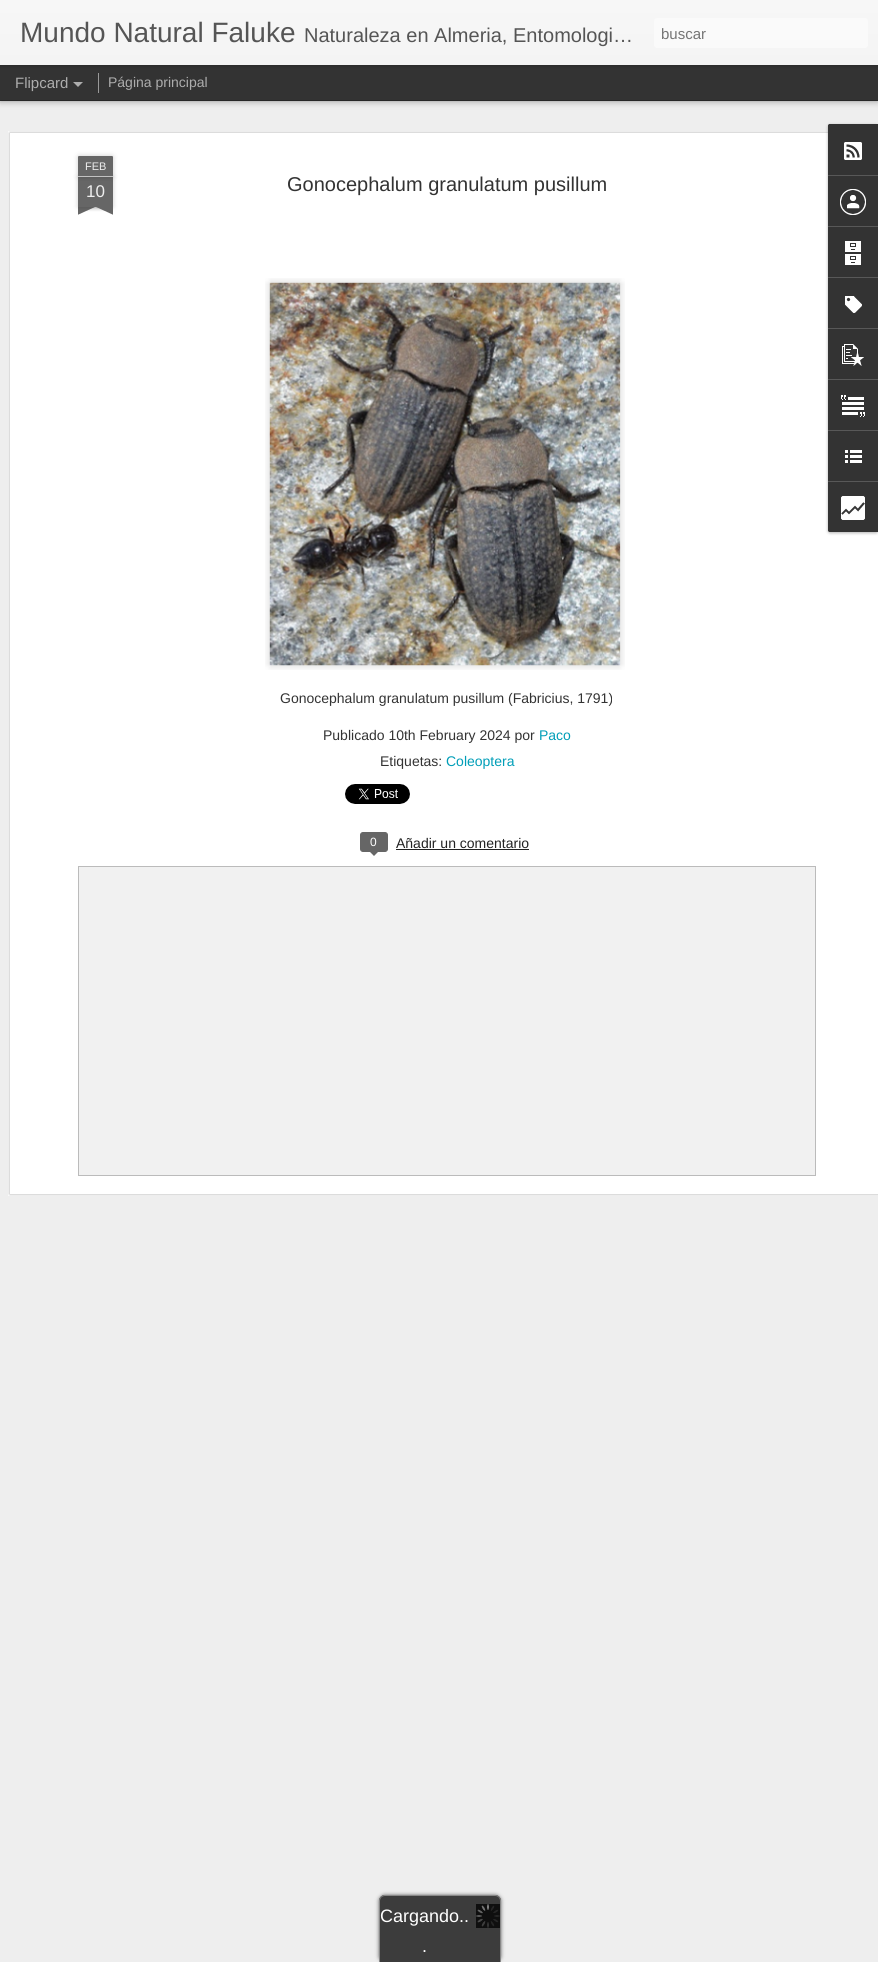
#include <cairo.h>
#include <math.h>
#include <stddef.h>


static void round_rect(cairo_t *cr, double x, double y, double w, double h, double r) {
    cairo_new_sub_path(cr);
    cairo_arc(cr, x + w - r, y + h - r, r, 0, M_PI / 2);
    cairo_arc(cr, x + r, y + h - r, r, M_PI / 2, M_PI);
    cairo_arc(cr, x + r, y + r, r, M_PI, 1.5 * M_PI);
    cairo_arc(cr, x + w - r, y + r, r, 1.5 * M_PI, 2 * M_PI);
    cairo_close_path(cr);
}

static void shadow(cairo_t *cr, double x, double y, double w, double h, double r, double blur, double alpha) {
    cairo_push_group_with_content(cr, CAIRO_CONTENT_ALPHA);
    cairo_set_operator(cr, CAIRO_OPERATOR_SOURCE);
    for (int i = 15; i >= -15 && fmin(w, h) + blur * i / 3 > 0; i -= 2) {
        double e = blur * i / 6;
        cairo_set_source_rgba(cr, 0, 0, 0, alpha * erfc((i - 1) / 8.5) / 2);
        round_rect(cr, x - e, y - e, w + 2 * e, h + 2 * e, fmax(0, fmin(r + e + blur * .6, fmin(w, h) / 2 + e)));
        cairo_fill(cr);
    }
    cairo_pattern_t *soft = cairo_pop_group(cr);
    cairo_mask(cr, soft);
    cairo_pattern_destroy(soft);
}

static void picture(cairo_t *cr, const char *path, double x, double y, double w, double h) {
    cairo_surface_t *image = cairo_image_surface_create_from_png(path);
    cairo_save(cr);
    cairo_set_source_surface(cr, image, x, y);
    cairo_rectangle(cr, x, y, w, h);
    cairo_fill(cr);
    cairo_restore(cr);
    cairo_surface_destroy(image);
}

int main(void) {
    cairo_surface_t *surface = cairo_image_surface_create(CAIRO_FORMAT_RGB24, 878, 1962);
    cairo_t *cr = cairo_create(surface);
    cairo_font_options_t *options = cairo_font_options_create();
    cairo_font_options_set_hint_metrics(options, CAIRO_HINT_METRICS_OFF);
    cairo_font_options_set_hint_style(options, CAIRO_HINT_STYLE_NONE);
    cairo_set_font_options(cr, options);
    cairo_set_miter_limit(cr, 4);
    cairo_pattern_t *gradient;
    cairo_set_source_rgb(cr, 0.2, 0.2, 0.2);
    cairo_paint(cr);
    cairo_set_source_rgb(cr, 0.933, 0.933, 0.933);
    cairo_rectangle(cr, 0, 101, 878, 1861);
    cairo_fill(cr);
    cairo_set_source_rgb(cr, 0, 0, 0);
    shadow(cr, 0, 65, 878, 35, 0, 4, 0.5);
    cairo_set_source_rgb(cr, 0.2, 0.2, 0.2);
    cairo_rectangle(cr, 0, 65, 878, 35);
    cairo_fill(cr);
    cairo_set_source_rgb(cr, 0.6, 0.6, 0.6);
    cairo_rectangle(cr, 98, 73, 1, 20);
    cairo_fill(cr);
    cairo_set_source_rgb(cr, 0, 0, 0);
    shadow(cr, 0, 0, 878, 65, 0, 2.5, 0.3);
    gradient = cairo_pattern_create_linear(0, 0, 0, 65);
    cairo_pattern_add_color_stop_rgba(gradient, 0, 0.969, 0.969, 0.969, 1);
    cairo_pattern_add_color_stop_rgba(gradient, 1, 0.957, 0.957, 0.957, 1);
    cairo_set_source(cr, gradient);
    cairo_pattern_destroy(gradient);
    cairo_rectangle(cr, 0, 0, 878, 65);
    cairo_fill(cr);
    cairo_select_font_face(cr, "Liberation Sans", CAIRO_FONT_SLANT_NORMAL, CAIRO_FONT_WEIGHT_NORMAL);
    cairo_set_font_size(cr, 28);
    cairo_set_source_rgb(cr, 0.333, 0.333, 0.333);
    cairo_move_to(cr, 20, 42);
    cairo_show_text(cr, "Mundo Natural Faluke");
    cairo_set_font_size(cr, 20);
    cairo_move_to(cr, 304, 42);
    cairo_show_text(cr, "Naturaleza en Almeria, Entomologi…");
    cairo_set_source_rgb(cr, 0.98, 0.98, 0.98);
    round_rect(cr, 654, 18, 214, 30, 3);
    cairo_fill(cr);
    cairo_set_font_size(cr, 15);
    cairo_set_source_rgb(cr, 0.459, 0.459, 0.459);
    cairo_move_to(cr, 661, 39);
    cairo_show_text(cr, "buscar");
    cairo_set_source_rgb(cr, 0.678, 0.678, 0.678);
    cairo_move_to(cr, 15, 88);
    cairo_show_text(cr, "Flipcard");
    cairo_new_path(cr);
    cairo_move_to(cr, 73, 82);
    cairo_line_to(cr, 83, 82);
    cairo_line_to(cr, 78, 87);
    cairo_close_path(cr);
    cairo_fill(cr);
    cairo_set_font_size(cr, 14);
    cairo_move_to(cr, 108, 87);
    cairo_show_text(cr, "Página principal");
    cairo_set_source_rgb(cr, 1, 1, 1);
    cairo_rectangle(cr, 8, 131, 870, 1065);
    cairo_fill(cr);
    picture(cr, "img1.png", 8, 131, 870, 1065);
    cairo_set_source_rgb(cr, 0, 0, 0);
    shadow(cr, 78, 177, 35, 30, 0, 2.5, 0.2);
    cairo_set_source_rgb(cr, 0.4, 0.4, 0.4);
    cairo_rectangle(cr, 78, 177, 35, 30);
    cairo_fill(cr);
    cairo_set_source_rgb(cr, 0, 0, 0);
    shadow(cr, 78, 156, 35, 21, 1, 2.5, 0.2);
    cairo_set_source_rgb(cr, 0.4, 0.4, 0.4);
    cairo_new_path(cr);
    cairo_move_to(cr, 79, 156);
    cairo_line_to(cr, 112, 156);
    cairo_curve_to(cr, 112.5, 156, 113, 156.5, 113, 157);
    cairo_line_to(cr, 113, 177);
    cairo_line_to(cr, 78, 177);
    cairo_line_to(cr, 78, 157);
    cairo_curve_to(cr, 78, 156.5, 78.5, 156, 79, 156);
    cairo_close_path(cr);
    cairo_fill(cr);
    cairo_set_source_rgb(cr, 0.761, 0.761, 0.761);
    cairo_rectangle(cr, 78, 176, 35, 1);
    cairo_fill(cr);
    cairo_set_font_size(cr, 11);
    cairo_set_source_rgb(cr, 0.933, 0.933, 0.933);
    cairo_move_to(cr, 85, 170);
    cairo_show_text(cr, "FEB");
    cairo_set_font_size(cr, 17);
    cairo_move_to(cr, 86, 197);
    cairo_show_text(cr, "10");
    cairo_save(cr);
    cairo_rectangle(cr, 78, 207, 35, 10);
    cairo_clip(cr);
    cairo_set_source_rgb(cr, 0, 0, 0);
    shadow(cr, 69, 197, 50, 10, 0, 2.5, 0.2);
    cairo_restore(cr);
    cairo_save(cr);
    cairo_rectangle(cr, 78, 207, 35, 10);
    cairo_clip(cr);
    cairo_set_source_rgb(cr, 0.4, 0.4, 0.4);
    cairo_new_path(cr);
    cairo_move_to(cr, 69, 208);
    cairo_line_to(cr, 115, 187);
    cairo_line_to(cr, 119, 196);
    cairo_line_to(cr, 73, 217);
    cairo_close_path(cr);
    cairo_fill(cr);
    cairo_restore(cr);
    cairo_save(cr);
    cairo_rectangle(cr, 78, 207, 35, 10);
    cairo_clip(cr);
    cairo_set_source_rgb(cr, 0, 0, 0);
    shadow(cr, 72, 197, 50, 10, 0, 2.5, 0.2);
    cairo_restore(cr);
    cairo_save(cr);
    cairo_rectangle(cr, 78, 207, 35, 10);
    cairo_clip(cr);
    cairo_set_source_rgb(cr, 0.4, 0.4, 0.4);
    cairo_new_path(cr);
    cairo_move_to(cr, 76, 187);
    cairo_line_to(cr, 122, 208);
    cairo_line_to(cr, 118, 217);
    cairo_line_to(cr, 72, 196);
    cairo_close_path(cr);
    cairo_fill(cr);
    cairo_restore(cr);
    cairo_set_font_size(cr, 20);
    cairo_set_source_rgb(cr, 0.2, 0.2, 0.2);
    cairo_move_to(cr, 287, 191);
    cairo_show_text(cr, "Gonocephalum granulatum pusillum");
    picture(cr, "img2.png", 265, 278, 360, 392);
    picture(cr, "img3.png", 269, 282, 352, 384);
    cairo_set_font_size(cr, 14);
    cairo_move_to(cr, 280, 703);
    cairo_show_text(cr, "Gonocephalum granulatum pusillum (Fabricius, 1791)");
    cairo_move_to(cr, 323, 740);
    cairo_show_text(cr, "Publicado 10th February 2024 por");
    cairo_set_source_rgb(cr, 0, 0.62, 0.722);
    cairo_move_to(cr, 539, 740);
    cairo_show_text(cr, "Paco");
    cairo_set_source_rgb(cr, 0.2, 0.2, 0.2);
    cairo_move_to(cr, 380, 766);
    cairo_show_text(cr, "Etiquetas:");
    cairo_set_source_rgb(cr, 0, 0.62, 0.722);
    cairo_move_to(cr, 446, 766);
    cairo_show_text(cr, "Coleoptera");
    picture(cr, "img4.png", 345, 784, 65, 20);
    cairo_set_source_rgb(cr, 0.4, 0.4, 0.4);
    round_rect(cr, 360.5, 832.5, 27, 19, 2.5);
    cairo_fill_preserve(cr);
    cairo_set_line_width(cr, 1);
    cairo_stroke(cr);
    cairo_set_font_size(cr, 12);
    cairo_set_source_rgb(cr, 1, 1, 1);
    cairo_move_to(cr, 370, 846);
    cairo_show_text(cr, "0");
    cairo_set_source_rgb(cr, 0.4, 0.4, 0.4);
    cairo_new_path(cr);
    cairo_move_to(cr, 369, 851);
    cairo_line_to(cr, 379, 851);
    cairo_line_to(cr, 374, 856);
    cairo_close_path(cr);
    cairo_fill(cr);
    cairo_set_font_size(cr, 14);
    cairo_set_source_rgb(cr, 0.133, 0.133, 0.133);
    cairo_move_to(cr, 396, 848);
    cairo_show_text(cr, "Añadir un comentario");
    cairo_rectangle(cr, 396, 849, 133, 1);
    cairo_fill(cr);
    cairo_set_source_rgb(cr, 0.945, 0.945, 0.945);
    cairo_rectangle(cr, 78.5, 866.5, 737, 309);
    cairo_fill_preserve(cr);
    cairo_set_source_rgb(cr, 0.733, 0.733, 0.733);
    cairo_stroke(cr);
    cairo_set_source_rgb(cr, 0, 0, 0);
    shadow(cr, 828, 125, 50, 408, 2, 1.5, 0.3);
    cairo_set_source_rgb(cr, 0.2, 0.2, 0.2);
    cairo_new_path(cr);
    cairo_move_to(cr, 830, 124);
    cairo_line_to(cr, 878, 124);
    cairo_line_to(cr, 878, 532);
    cairo_line_to(cr, 830, 532);
    cairo_curve_to(cr, 829, 532, 828, 531, 828, 530);
    cairo_line_to(cr, 828, 126);
    cairo_curve_to(cr, 828, 125, 829, 124, 830, 124);
    cairo_close_path(cr);
    cairo_fill(cr);
    cairo_new_path(cr);
    cairo_move_to(cr, 830, 124);
    cairo_line_to(cr, 878, 124);
    cairo_line_to(cr, 878, 175);
    cairo_line_to(cr, 828, 175);
    cairo_line_to(cr, 828, 126);
    cairo_curve_to(cr, 828, 125, 829, 124, 830, 124);
    cairo_close_path(cr);
    cairo_fill(cr);
    picture(cr, "img5.png", 844, 142, 18, 18);
    cairo_set_source_rgb(cr, 0.345, 0.345, 0.345);
    cairo_rectangle(cr, 828, 175, 50, 1);
    cairo_fill(cr);
    picture(cr, "img6.png", 840, 189, 26, 26);
    cairo_rectangle(cr, 828, 226, 50, 1);
    cairo_fill(cr);
    picture(cr, "img7.png", 845, 241, 16, 24);
    cairo_rectangle(cr, 828, 277, 50, 1);
    cairo_fill(cr);
    picture(cr, "img8.png", 845, 296, 17, 17);
    cairo_rectangle(cr, 828, 328, 50, 1);
    cairo_fill(cr);
    picture(cr, "img9.png", 842, 344, 22, 22);
    cairo_rectangle(cr, 828, 379, 50, 1);
    cairo_fill(cr);
    picture(cr, "img10.png", 841, 395, 24, 22);
    cairo_rectangle(cr, 828, 430, 50, 1);
    cairo_fill(cr);
    picture(cr, "img11.png", 845, 450, 17, 13);
    cairo_set_source_rgb(cr, 0.2, 0.2, 0.2);
    cairo_new_path(cr);
    cairo_move_to(cr, 828, 481);
    cairo_line_to(cr, 878, 481);
    cairo_line_to(cr, 878, 532);
    cairo_line_to(cr, 830, 532);
    cairo_curve_to(cr, 829, 532, 828, 531, 828, 530);
    cairo_close_path(cr);
    cairo_fill(cr);
    cairo_set_source_rgb(cr, 0.345, 0.345, 0.345);
    cairo_rectangle(cr, 828, 481, 50, 1);
    cairo_fill(cr);
    picture(cr, "img12.png", 841, 496, 24, 24);
    cairo_set_source_rgb(cr, 0.384, 0.384, 0.384);
    shadow(cr, 379, 1895, 122, 67, 6, 2, 1);
    cairo_set_source_rgb(cr, 0.235, 0.235, 0.235);
    cairo_new_path(cr);
    cairo_move_to(cr, 385, 1895);
    cairo_line_to(cr, 495, 1895);
    cairo_curve_to(cr, 498.5, 1895, 501, 1897.5, 501, 1901);
    cairo_line_to(cr, 501, 1962);
    cairo_line_to(cr, 379, 1962);
    cairo_line_to(cr, 379, 1901);
    cairo_curve_to(cr, 379, 1897.5, 381.5, 1895, 385, 1895);
    cairo_close_path(cr);
    cairo_fill(cr);
    cairo_set_source_rgb(cr, 0.533, 0.533, 0.533);
    cairo_set_fill_rule(cr, CAIRO_FILL_RULE_EVEN_ODD);
    cairo_new_path(cr);
    cairo_move_to(cr, 385, 1895);
    cairo_line_to(cr, 495, 1895);
    cairo_curve_to(cr, 498, 1895, 501, 1898, 501, 1901);
    cairo_line_to(cr, 501, 1962);
    cairo_line_to(cr, 379, 1962);
    cairo_line_to(cr, 379, 1901);
    cairo_curve_to(cr, 379, 1898, 382, 1895, 385, 1895);
    cairo_close_path(cr);
    cairo_move_to(cr, 385, 1896);
    cairo_line_to(cr, 495, 1896);
    cairo_curve_to(cr, 498, 1896, 500, 1898, 500, 1901);
    cairo_line_to(cr, 500, 1962);
    cairo_line_to(cr, 380, 1962);
    cairo_line_to(cr, 380, 1901);
    cairo_curve_to(cr, 380, 1898, 382, 1896, 385, 1896);
    cairo_close_path(cr);
    cairo_fill(cr);
    picture(cr, "img13.png", 476, 1904, 24, 24);
    cairo_set_font_size(cr, 18);
    cairo_set_source_rgb(cr, 1, 1, 1);
    cairo_move_to(cr, 380, 1922);
    cairo_show_text(cr, "Cargando..");
    cairo_move_to(cr, 422, 1952);
    cairo_show_text(cr, ".");
    cairo_surface_write_to_png(surface, "page.png");
    cairo_font_options_destroy(options);
    cairo_destroy(cr);
    cairo_surface_destroy(surface);
    return 0;
}
